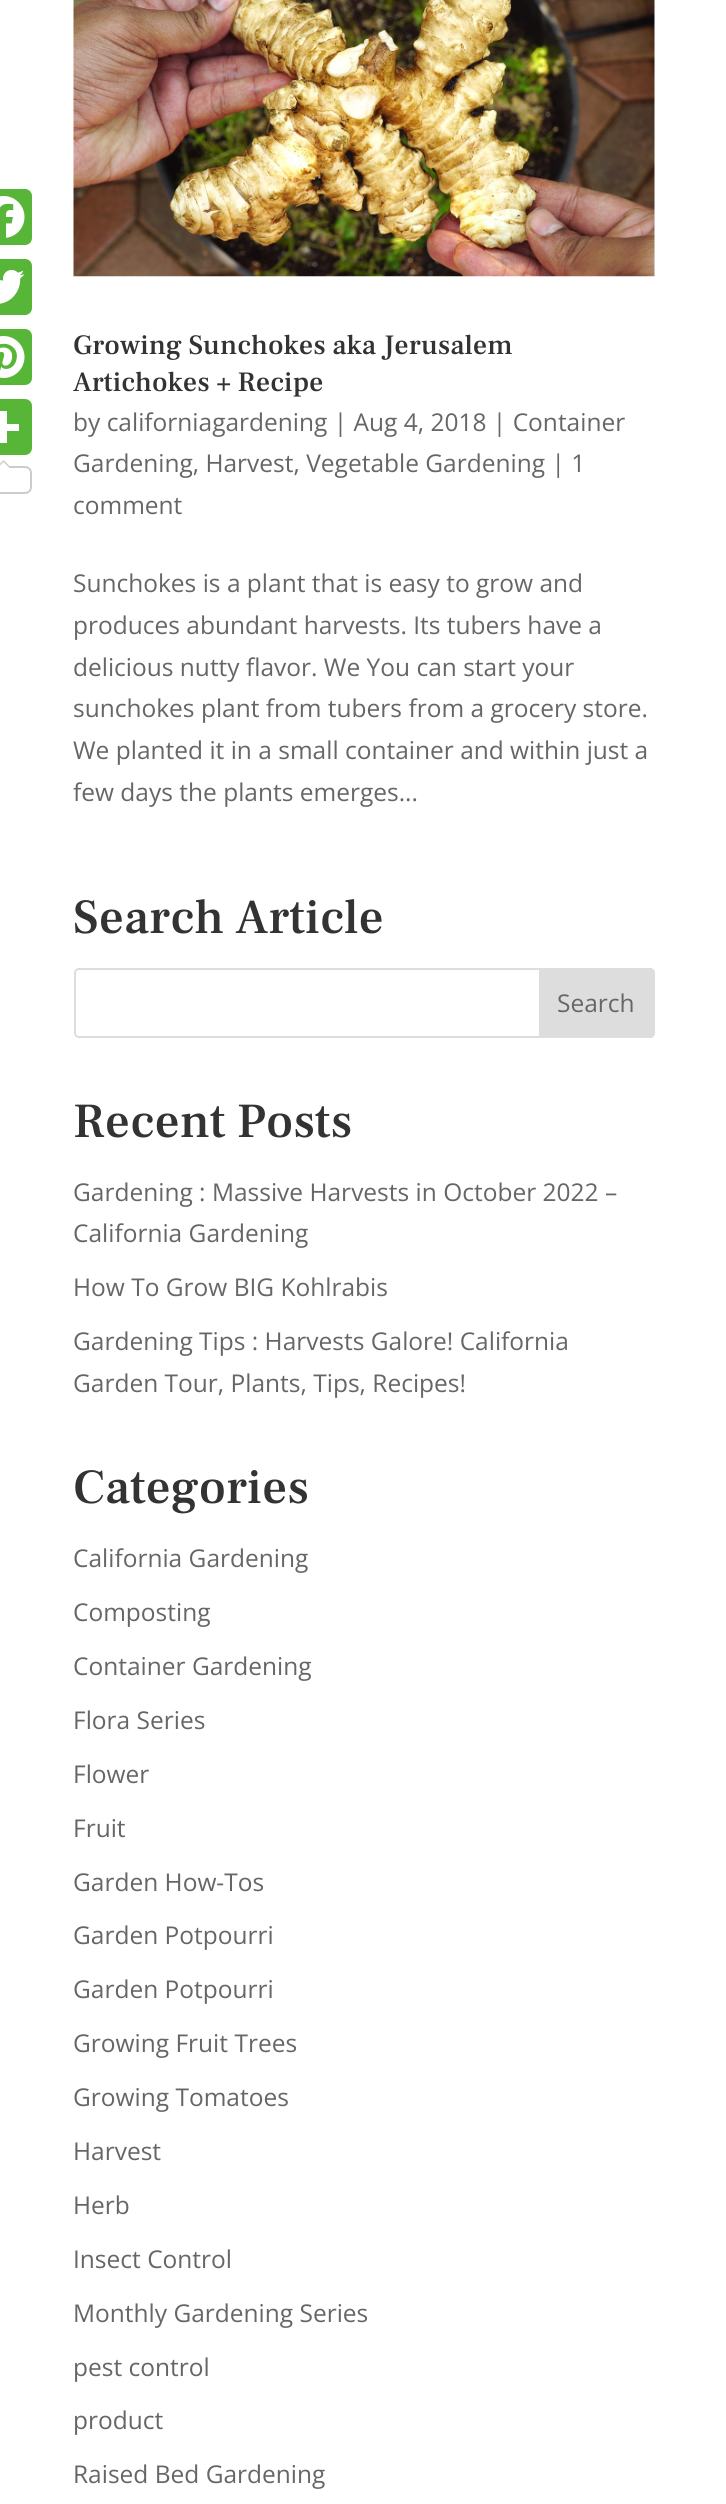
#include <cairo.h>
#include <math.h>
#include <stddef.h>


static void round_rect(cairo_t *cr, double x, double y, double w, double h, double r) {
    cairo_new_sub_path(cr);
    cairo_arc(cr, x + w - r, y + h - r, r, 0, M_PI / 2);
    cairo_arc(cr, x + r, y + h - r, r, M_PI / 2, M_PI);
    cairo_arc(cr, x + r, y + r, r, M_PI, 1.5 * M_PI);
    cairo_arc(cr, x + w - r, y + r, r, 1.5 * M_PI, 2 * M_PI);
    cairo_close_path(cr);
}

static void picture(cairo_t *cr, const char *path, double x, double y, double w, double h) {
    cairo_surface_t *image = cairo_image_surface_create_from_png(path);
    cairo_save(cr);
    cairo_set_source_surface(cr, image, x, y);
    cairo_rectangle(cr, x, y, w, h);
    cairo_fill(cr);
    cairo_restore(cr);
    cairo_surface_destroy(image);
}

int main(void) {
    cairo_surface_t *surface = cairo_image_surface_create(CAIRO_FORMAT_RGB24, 726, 2504);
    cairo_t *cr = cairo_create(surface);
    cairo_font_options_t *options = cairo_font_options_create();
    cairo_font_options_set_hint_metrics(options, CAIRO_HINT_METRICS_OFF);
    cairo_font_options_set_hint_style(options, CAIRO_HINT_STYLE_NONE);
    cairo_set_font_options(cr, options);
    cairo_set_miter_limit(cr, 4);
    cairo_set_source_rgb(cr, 1, 1, 1);
    cairo_paint(cr);
    picture(cr, "img1.png", 73, 0, 582, 277);
    cairo_set_source_rgb(cr, 0.341, 0.71, 0.22);
    round_rect(cr, -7, 189, 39, 56, 7);
    cairo_fill(cr);
    picture(cr, "img2.png", 0, 196, 25, 42);
    round_rect(cr, -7, 259, 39, 56, 7);
    cairo_fill(cr);
    picture(cr, "img3.png", 0, 269, 25, 35);
    round_rect(cr, -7, 329, 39, 56, 7);
    cairo_fill(cr);
    picture(cr, "img4.png", 0, 336, 25, 42);
    round_rect(cr, -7, 399, 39, 56, 7);
    cairo_fill(cr);
    cairo_set_source_rgb(cr, 1, 1, 1);
    cairo_rectangle(cr, 0, 411, 7, 32);
    cairo_fill(cr);
    cairo_rectangle(cr, 0, 424, 19, 7);
    cairo_fill(cr);
    round_rect(cr, -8, 467, 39, 26, 6);
    cairo_set_source_rgb(cr, 0.8, 0.8, 0.8);
    cairo_stroke(cr);
    cairo_new_path(cr);
    cairo_move_to(cr, 10.5, 467);
    cairo_line_to(cr, -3.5, 467);
    cairo_line_to(cr, 3.5, 460);
    cairo_close_path(cr);
    cairo_fill(cr);
    cairo_set_source_rgb(cr, 1, 1, 1);
    cairo_new_path(cr);
    cairo_move_to(cr, 10.5, 469);
    cairo_line_to(cr, -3.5, 469);
    cairo_line_to(cr, 3.5, 462);
    cairo_close_path(cr);
    cairo_fill(cr);
    cairo_select_font_face(cr, "Frank Ruhl Libre Medium", CAIRO_FONT_SLANT_NORMAL, CAIRO_FONT_WEIGHT_NORMAL);
    cairo_set_font_size(cr, 28);
    cairo_set_source_rgb(cr, 0.2, 0.2, 0.2);
    cairo_move_to(cr, 73, 354);
    cairo_show_text(cr, "Growing Sunchokes aka Jerusalem");
    cairo_move_to(cr, 73, 391);
    cairo_show_text(cr, "Artichokes + Recipe");
    cairo_select_font_face(cr, "Open Sans", CAIRO_FONT_SLANT_NORMAL, CAIRO_FONT_WEIGHT_NORMAL);
    cairo_set_font_size(cr, 24.5);
    cairo_set_source_rgb(cr, 0.4, 0.4, 0.4);
    cairo_move_to(cr, 73, 431);
    cairo_show_text(cr, "by californiagardening | Aug 4, 2018 | Container");
    cairo_move_to(cr, 73, 472);
    cairo_show_text(cr, "Gardening, Harvest, Vegetable Gardening | 1");
    cairo_move_to(cr, 73, 514);
    cairo_show_text(cr, "comment");
    cairo_move_to(cr, 73, 592);
    cairo_show_text(cr, "Sunchokes is a plant that is easy to grow and");
    cairo_move_to(cr, 73, 634);
    cairo_show_text(cr, "produces abundant harvests. Its tubers have a");
    cairo_move_to(cr, 73, 676);
    cairo_show_text(cr, "delicious nutty flavor. We You can start your");
    cairo_move_to(cr, 73, 717);
    cairo_show_text(cr, "sunchokes plant from tubers from a grocery store.");
    cairo_move_to(cr, 73, 759);
    cairo_show_text(cr, "We planted it in a small container and within just a");
    cairo_move_to(cr, 73, 801);
    cairo_show_text(cr, "few days the plants emerges...");
    cairo_select_font_face(cr, "Frank Ruhl Libre Medium", CAIRO_FONT_SLANT_NORMAL, CAIRO_FONT_WEIGHT_NORMAL);
    cairo_set_font_size(cr, 49);
    cairo_set_source_rgb(cr, 0.2, 0.2, 0.2);
    cairo_move_to(cr, 73, 933);
    cairo_show_text(cr, "Search Article");
    round_rect(cr, 75, 969, 579, 68, 4);
    cairo_set_source_rgb(cr, 0.867, 0.867, 0.867);
    cairo_stroke(cr);
    cairo_new_path(cr);
    cairo_move_to(cr, 540, 969);
    cairo_line_to(cr, 650, 969);
    cairo_curve_to(cr, 652, 969, 654, 971, 654, 973);
    cairo_line_to(cr, 654, 1033);
    cairo_curve_to(cr, 654, 1035, 652, 1037, 650, 1037);
    cairo_line_to(cr, 540, 1037);
    cairo_close_path(cr);
    cairo_fill_preserve(cr);
    cairo_stroke(cr);
    cairo_select_font_face(cr, "Open Sans", CAIRO_FONT_SLANT_NORMAL, CAIRO_FONT_WEIGHT_NORMAL);
    cairo_set_font_size(cr, 24.5);
    cairo_set_source_rgb(cr, 0.4, 0.4, 0.4);
    cairo_move_to(cr, 557, 1012);
    cairo_show_text(cr, "Search");
    cairo_select_font_face(cr, "Frank Ruhl Libre Medium", CAIRO_FONT_SLANT_NORMAL, CAIRO_FONT_WEIGHT_NORMAL);
    cairo_set_font_size(cr, 49);
    cairo_set_source_rgb(cr, 0.2, 0.2, 0.2);
    cairo_move_to(cr, 73, 1137);
    cairo_show_text(cr, "Recent Posts");
    cairo_select_font_face(cr, "Open Sans", CAIRO_FONT_SLANT_NORMAL, CAIRO_FONT_WEIGHT_NORMAL);
    cairo_set_font_size(cr, 24.5);
    cairo_set_source_rgb(cr, 0.4, 0.4, 0.4);
    cairo_move_to(cr, 73, 1201);
    cairo_show_text(cr, "Gardening : Massive Harvests in October 2022 –");
    cairo_move_to(cr, 73, 1242);
    cairo_show_text(cr, "California Gardening");
    cairo_move_to(cr, 73, 1296);
    cairo_show_text(cr, "How To Grow BIG Kohlrabis");
    cairo_move_to(cr, 73, 1350);
    cairo_show_text(cr, "Gardening Tips : Harvests Galore! California");
    cairo_move_to(cr, 73, 1392);
    cairo_show_text(cr, "Garden Tour, Plants, Tips, Recipes!");
    cairo_select_font_face(cr, "Frank Ruhl Libre Medium", CAIRO_FONT_SLANT_NORMAL, CAIRO_FONT_WEIGHT_NORMAL);
    cairo_set_font_size(cr, 49);
    cairo_set_source_rgb(cr, 0.2, 0.2, 0.2);
    cairo_move_to(cr, 73, 1503);
    cairo_show_text(cr, "Categories");
    cairo_select_font_face(cr, "Open Sans", CAIRO_FONT_SLANT_NORMAL, CAIRO_FONT_WEIGHT_NORMAL);
    cairo_set_font_size(cr, 24.5);
    cairo_set_source_rgb(cr, 0.4, 0.4, 0.4);
    cairo_move_to(cr, 73, 1567);
    cairo_show_text(cr, "California Gardening");
    cairo_move_to(cr, 73, 1621);
    cairo_show_text(cr, "Composting");
    cairo_move_to(cr, 73, 1675);
    cairo_show_text(cr, "Container Gardening");
    cairo_move_to(cr, 73, 1729);
    cairo_show_text(cr, "Flora Series");
    cairo_move_to(cr, 73, 1783);
    cairo_show_text(cr, "Flower");
    cairo_move_to(cr, 73, 1837);
    cairo_show_text(cr, "Fruit");
    cairo_move_to(cr, 73, 1891);
    cairo_show_text(cr, "Garden How-Tos");
    cairo_move_to(cr, 73, 1944);
    cairo_show_text(cr, "Garden Potpourri");
    cairo_move_to(cr, 73, 1998);
    cairo_show_text(cr, "Garden Potpourri");
    cairo_move_to(cr, 73, 2052);
    cairo_show_text(cr, "Growing Fruit Trees");
    cairo_move_to(cr, 73, 2106);
    cairo_show_text(cr, "Growing Tomatoes");
    cairo_move_to(cr, 73, 2160);
    cairo_show_text(cr, "Harvest");
    cairo_move_to(cr, 73, 2214);
    cairo_show_text(cr, "Herb");
    cairo_move_to(cr, 73, 2268);
    cairo_show_text(cr, "Insect Control");
    cairo_move_to(cr, 73, 2322);
    cairo_show_text(cr, "Monthly Gardening Series");
    cairo_move_to(cr, 73, 2376);
    cairo_show_text(cr, "pest control");
    cairo_move_to(cr, 73, 2429);
    cairo_show_text(cr, "product");
    cairo_move_to(cr, 73, 2483);
    cairo_show_text(cr, "Raised Bed Gardening");
    cairo_surface_write_to_png(surface, "page.png");
    cairo_font_options_destroy(options);
    cairo_destroy(cr);
    cairo_surface_destroy(surface);
    return 0;
}
